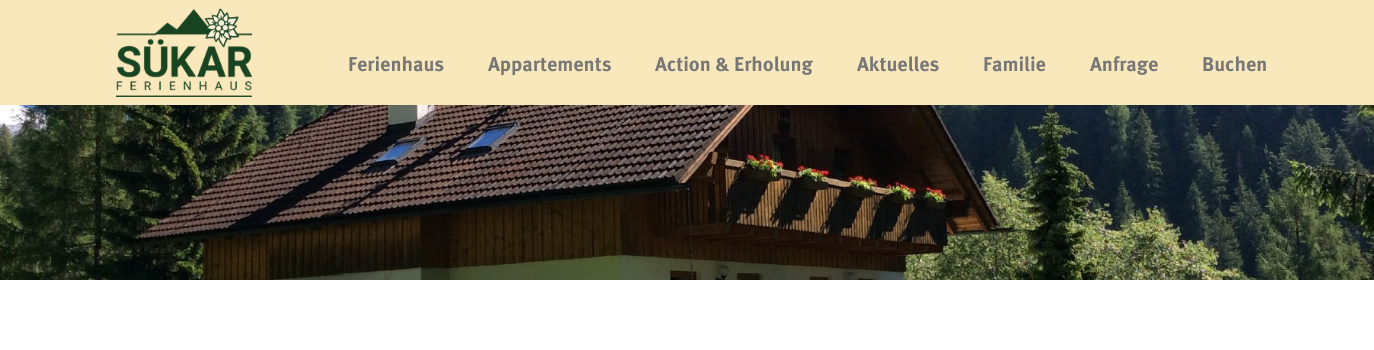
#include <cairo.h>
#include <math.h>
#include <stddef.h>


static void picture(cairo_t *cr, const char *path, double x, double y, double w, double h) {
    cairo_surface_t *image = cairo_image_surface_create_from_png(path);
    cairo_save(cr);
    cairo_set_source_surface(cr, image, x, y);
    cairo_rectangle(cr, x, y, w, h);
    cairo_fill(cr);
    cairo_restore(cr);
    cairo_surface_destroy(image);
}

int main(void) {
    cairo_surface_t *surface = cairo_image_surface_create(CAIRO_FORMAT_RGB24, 1374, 350);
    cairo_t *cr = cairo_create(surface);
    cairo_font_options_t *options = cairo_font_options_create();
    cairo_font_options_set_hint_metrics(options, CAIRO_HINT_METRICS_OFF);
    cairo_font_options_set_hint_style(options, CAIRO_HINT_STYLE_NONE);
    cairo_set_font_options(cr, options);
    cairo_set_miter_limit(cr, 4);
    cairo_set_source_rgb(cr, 1, 1, 1);
    cairo_paint(cr);
    cairo_set_source_rgb(cr, 0.969, 0.91, 0.737);
    cairo_rectangle(cr, 0, 0, 1374, 105);
    cairo_fill(cr);
    picture(cr, "img1.png", 115, 8, 138, 89);
    cairo_select_font_face(cr, "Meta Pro", CAIRO_FONT_SLANT_NORMAL, CAIRO_FONT_WEIGHT_BOLD);
    cairo_set_font_size(cr, 20);
    cairo_set_source_rgb(cr, 0.467, 0.467, 0.467);
    cairo_move_to(cr, 348, 71);
    cairo_show_text(cr, "Ferienhaus");
    cairo_move_to(cr, 488, 71);
    cairo_show_text(cr, "Appartements");
    cairo_move_to(cr, 655, 71);
    cairo_show_text(cr, "Action & Erholung");
    cairo_move_to(cr, 857, 71);
    cairo_show_text(cr, "Aktuelles");
    cairo_move_to(cr, 983, 71);
    cairo_show_text(cr, "Familie");
    cairo_move_to(cr, 1090, 71);
    cairo_show_text(cr, "Anfrage");
    cairo_move_to(cr, 1202, 71);
    cairo_show_text(cr, "Buchen");
    picture(cr, "img2.png", 0, 105, 1374, 175);
    cairo_surface_write_to_png(surface, "page.png");
    cairo_font_options_destroy(options);
    cairo_destroy(cr);
    cairo_surface_destroy(surface);
    return 0;
}
